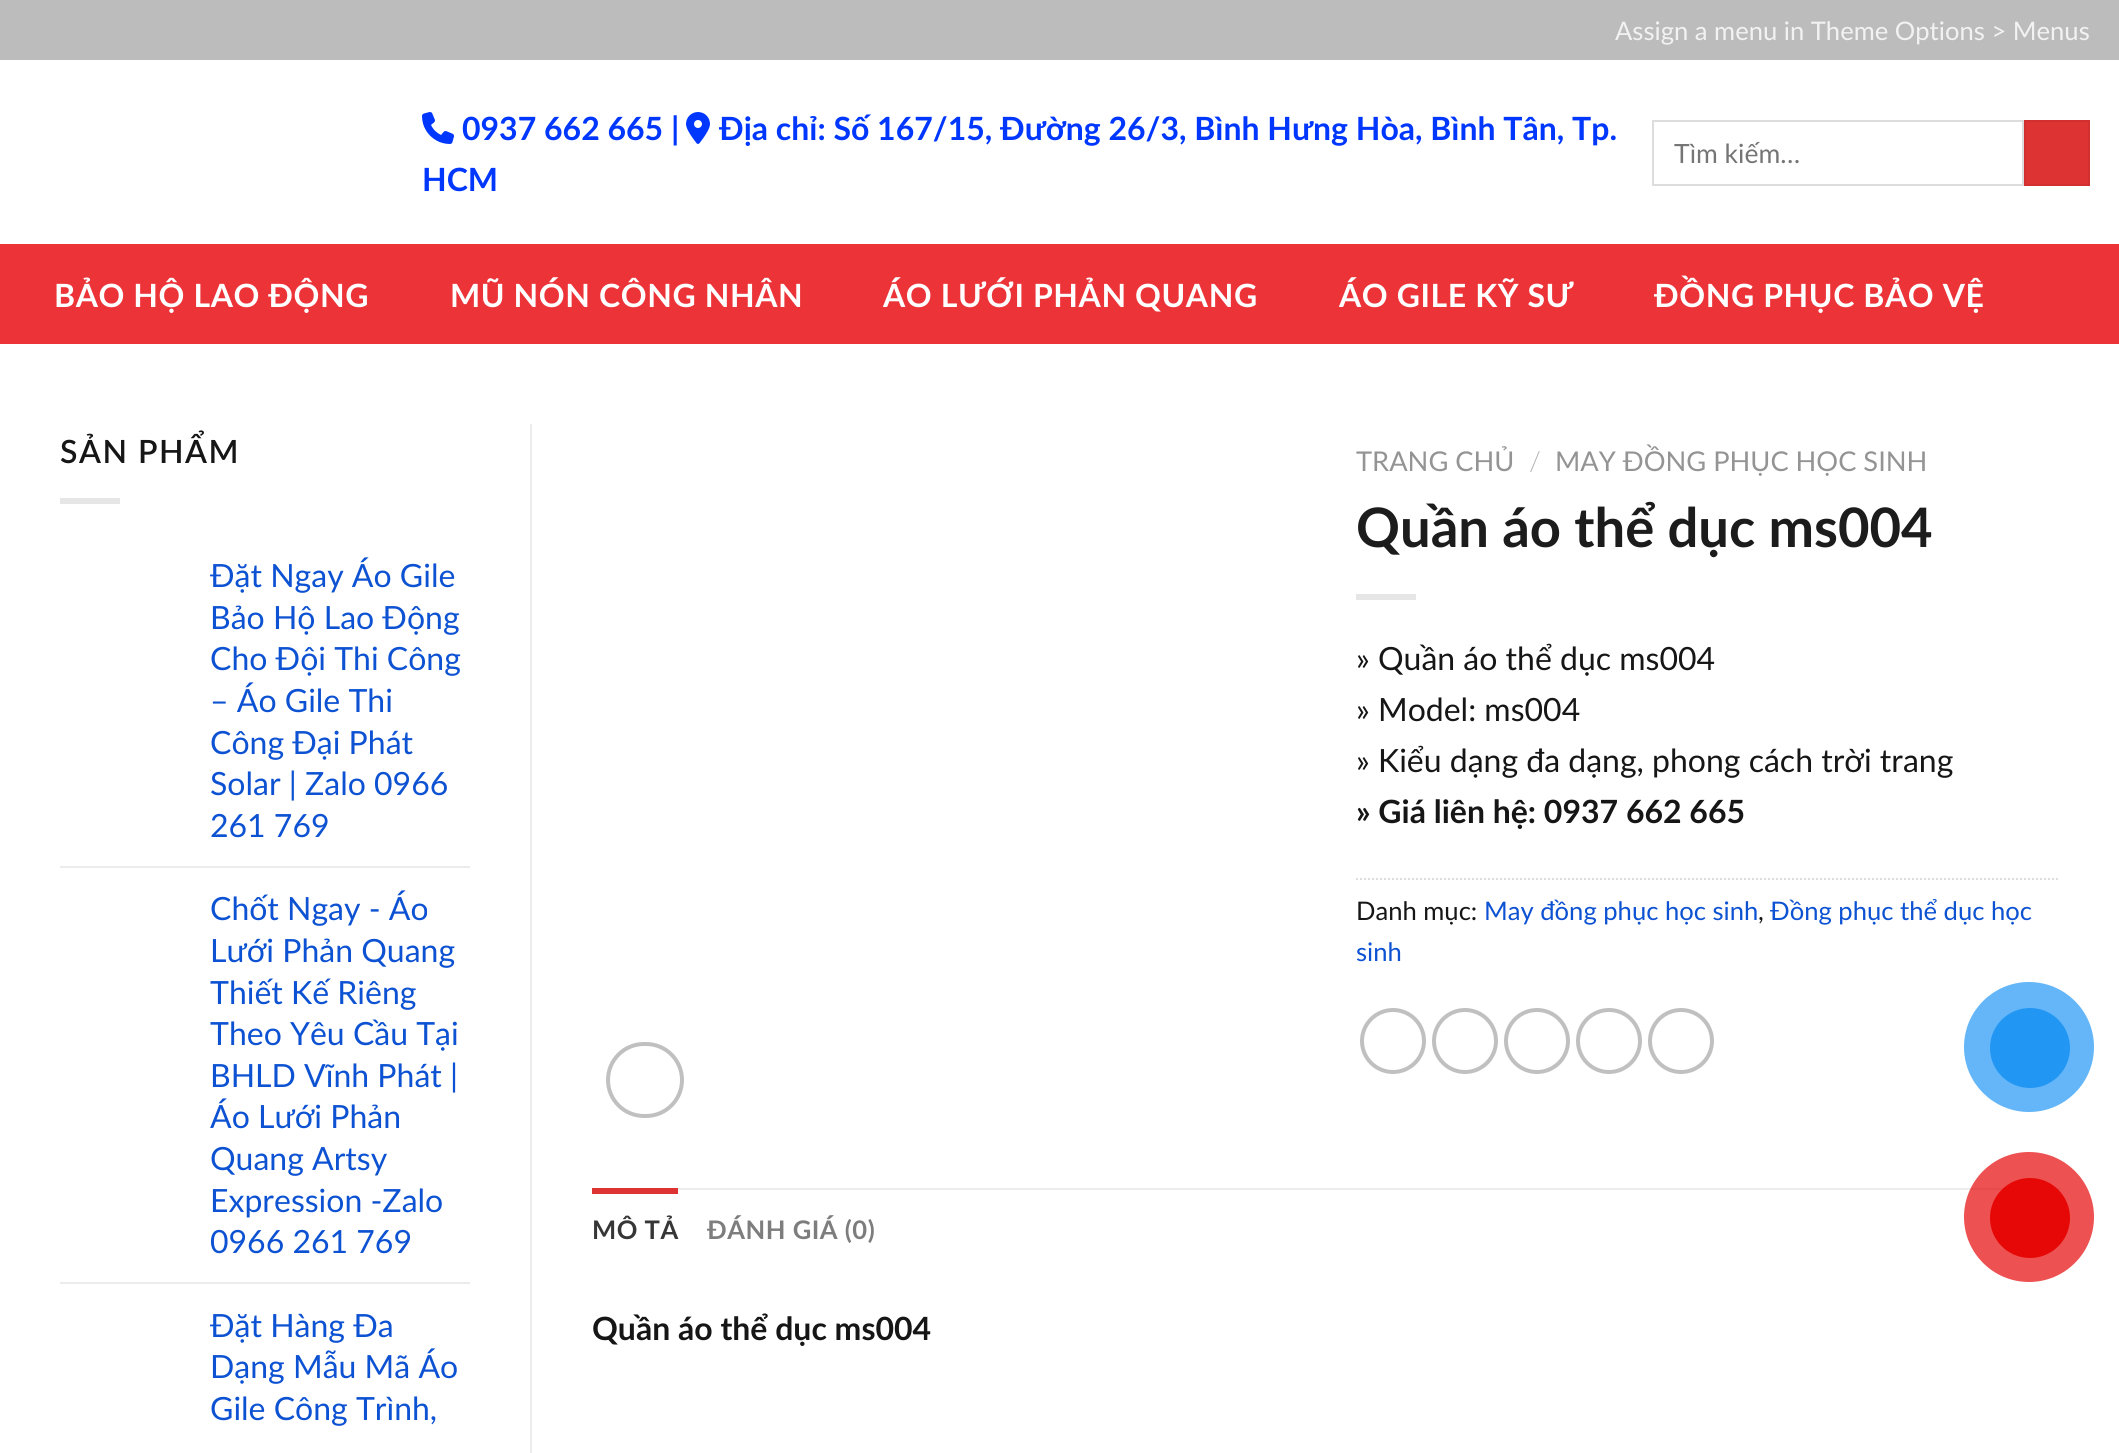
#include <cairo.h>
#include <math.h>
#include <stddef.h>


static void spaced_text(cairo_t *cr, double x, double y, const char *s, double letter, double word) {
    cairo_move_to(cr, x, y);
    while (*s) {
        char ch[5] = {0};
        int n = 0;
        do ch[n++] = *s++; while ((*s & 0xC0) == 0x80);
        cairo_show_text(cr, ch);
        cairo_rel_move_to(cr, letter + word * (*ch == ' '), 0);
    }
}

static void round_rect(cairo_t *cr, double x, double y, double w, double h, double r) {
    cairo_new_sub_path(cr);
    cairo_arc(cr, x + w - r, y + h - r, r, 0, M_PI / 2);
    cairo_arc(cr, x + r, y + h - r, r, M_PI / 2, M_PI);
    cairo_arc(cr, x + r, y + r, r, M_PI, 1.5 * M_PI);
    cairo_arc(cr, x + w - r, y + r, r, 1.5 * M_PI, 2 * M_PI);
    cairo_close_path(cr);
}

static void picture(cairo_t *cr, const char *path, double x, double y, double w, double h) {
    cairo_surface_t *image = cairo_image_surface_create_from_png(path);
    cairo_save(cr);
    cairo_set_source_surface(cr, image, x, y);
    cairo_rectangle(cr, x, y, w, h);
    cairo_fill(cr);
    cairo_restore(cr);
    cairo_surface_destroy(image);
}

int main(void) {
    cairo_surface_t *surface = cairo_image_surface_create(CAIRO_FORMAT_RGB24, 2119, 1453);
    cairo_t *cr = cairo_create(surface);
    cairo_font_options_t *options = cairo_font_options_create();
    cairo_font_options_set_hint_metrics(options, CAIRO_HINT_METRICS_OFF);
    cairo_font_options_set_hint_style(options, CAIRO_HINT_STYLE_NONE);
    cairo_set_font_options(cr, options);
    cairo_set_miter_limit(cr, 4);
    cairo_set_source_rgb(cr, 1, 1, 1);
    cairo_paint(cr);
    cairo_set_source_rgb(cr, 0.737, 0.737, 0.737);
    cairo_rectangle(cr, 0, 0, 2119, 60);
    cairo_fill(cr);
    cairo_select_font_face(cr, "Lato", CAIRO_FONT_SLANT_NORMAL, CAIRO_FONT_WEIGHT_NORMAL);
    cairo_set_font_size(cr, 25.6);
    cairo_set_source_rgb(cr, 0.949, 0.949, 0.949);
    cairo_move_to(cr, 1615, 40);
    cairo_show_text(cr, "Assign a menu in Theme Options > Menus");
    picture(cr, "img1.png", 422, 112, 32, 32);
    cairo_select_font_face(cr, "Lato", CAIRO_FONT_SLANT_NORMAL, CAIRO_FONT_WEIGHT_BOLD);
    cairo_set_font_size(cr, 32);
    cairo_set_source_rgb(cr, 0, 0.216, 1);
    cairo_move_to(cr, 462, 140);
    cairo_show_text(cr, "0937 662 665 |");
    picture(cr, "img2.png", 686, 112, 24, 32);
    cairo_move_to(cr, 719, 140);
    cairo_show_text(cr, "Địa chỉ: Số 167/15, Đường 26/3, Bình Hưng Hòa, Bình Tân, Tp.");
    cairo_move_to(cr, 422, 191);
    cairo_show_text(cr, "HCM");
    cairo_rectangle(cr, 1653, 121, 370, 64);
    cairo_set_source_rgb(cr, 0.867, 0.867, 0.867);
    cairo_stroke(cr);
    cairo_select_font_face(cr, "Lato", CAIRO_FONT_SLANT_NORMAL, CAIRO_FONT_WEIGHT_NORMAL);
    cairo_set_font_size(cr, 26.5);
    cairo_set_source_rgb(cr, 0.459, 0.459, 0.459);
    cairo_move_to(cr, 1674, 163);
    cairo_show_text(cr, "Tìm kiếm…");
    cairo_set_source_rgb(cr, 0.867, 0.2, 0.2);
    cairo_rectangle(cr, 2025, 121, 64, 64);
    cairo_fill_preserve(cr);
    cairo_set_source_rgb(cr, 0.824, 0.188, 0.188);
    cairo_stroke(cr);
    cairo_set_source_rgb(cr, 0.925, 0.2, 0.22);
    cairo_rectangle(cr, 0, 244, 2119, 100);
    cairo_fill(cr);
    cairo_select_font_face(cr, "Lato", CAIRO_FONT_SLANT_NORMAL, CAIRO_FONT_WEIGHT_BOLD);
    cairo_set_font_size(cr, 32);
    cairo_set_source_rgb(cr, 1, 1, 1);
    spaced_text(cr, 54, 307, "BẢO HỘ LAO ĐỘNG", 0.6, 0);
    spaced_text(cr, 450, 307, "MŨ NÓN CÔNG NHÂN", 0.6, 0);
    spaced_text(cr, 883, 307, "ÁO LƯỚI PHẢN QUANG", 0.6, 0);
    spaced_text(cr, 1339, 307, "ÁO GILE KỸ SƯ", 0.6, 0);
    spaced_text(cr, 1654, 307, "ĐỒNG PHỤC BẢO VỆ", 0.6, 0);
    cairo_select_font_face(cr, "Lato SemiBold", CAIRO_FONT_SLANT_NORMAL, CAIRO_FONT_WEIGHT_NORMAL);
    cairo_set_source_rgb(cr, 0.086, 0.086, 0.086);
    spaced_text(cr, 60, 463, "SẢN PHẨM", 1.5, 0);
    cairo_set_source_rgb(cr, 0.902, 0.902, 0.902);
    cairo_rectangle(cr, 60, 498, 60, 6);
    cairo_fill(cr);
    cairo_select_font_face(cr, "Lato", CAIRO_FONT_SLANT_NORMAL, CAIRO_FONT_WEIGHT_NORMAL);
    cairo_set_source_rgb(cr, 0.051, 0.322, 0.824);
    cairo_move_to(cr, 210, 587);
    cairo_show_text(cr, "Đặt Ngay Áo Gile");
    cairo_move_to(cr, 210, 629);
    cairo_show_text(cr, "Bảo Hộ Lao Động");
    cairo_move_to(cr, 210, 670);
    cairo_show_text(cr, "Cho Đội Thi Công");
    cairo_move_to(cr, 210, 712);
    cairo_show_text(cr, "– Áo Gile Thi");
    cairo_move_to(cr, 210, 754);
    cairo_show_text(cr, "Công Đại Phát");
    cairo_move_to(cr, 210, 795);
    cairo_show_text(cr, "Solar | Zalo 0966");
    cairo_move_to(cr, 210, 837);
    cairo_show_text(cr, "261 769");
    cairo_set_source_rgb(cr, 0.925, 0.925, 0.925);
    cairo_rectangle(cr, 60, 866, 410, 2);
    cairo_fill(cr);
    cairo_set_source_rgb(cr, 0.051, 0.322, 0.824);
    cairo_move_to(cr, 210, 920);
    cairo_show_text(cr, "Chốt Ngay - Áo");
    cairo_move_to(cr, 210, 962);
    cairo_show_text(cr, "Lưới Phản Quang");
    cairo_move_to(cr, 210, 1004);
    cairo_show_text(cr, "Thiết Kế Riêng");
    cairo_move_to(cr, 210, 1045);
    cairo_show_text(cr, "Theo Yêu Cầu Tại");
    cairo_move_to(cr, 210, 1087);
    cairo_show_text(cr, "BHLD Vĩnh Phát |");
    cairo_move_to(cr, 210, 1128);
    cairo_show_text(cr, "Áo Lưới Phản");
    cairo_move_to(cr, 210, 1170);
    cairo_show_text(cr, "Quang Artsy");
    cairo_move_to(cr, 210, 1212);
    cairo_show_text(cr, "Expression -Zalo");
    cairo_move_to(cr, 210, 1253);
    cairo_show_text(cr, "0966 261 769");
    cairo_set_source_rgb(cr, 0.925, 0.925, 0.925);
    cairo_rectangle(cr, 60, 1282, 410, 2);
    cairo_fill(cr);
    cairo_set_source_rgb(cr, 0.051, 0.322, 0.824);
    cairo_move_to(cr, 210, 1337);
    cairo_show_text(cr, "Đặt Hàng Đa");
    cairo_move_to(cr, 210, 1378);
    cairo_show_text(cr, "Dạng Mẫu Mã Áo");
    cairo_move_to(cr, 210, 1420);
    cairo_show_text(cr, "Gile Công Trình,");
    cairo_set_source_rgb(cr, 0.925, 0.925, 0.925);
    cairo_rectangle(cr, 530, 424, 2, 1029);
    cairo_fill(cr);
    cairo_set_font_size(cr, 27.25);
    cairo_set_source_rgb(cr, 0.58, 0.58, 0.58);
    cairo_move_to(cr, 1356, 471);
    cairo_show_text(cr, "TRANG CHỦ");
    cairo_select_font_face(cr, "Lato Light", CAIRO_FONT_SLANT_NORMAL, CAIRO_FONT_WEIGHT_NORMAL);
    cairo_set_source_rgb(cr, 0.698, 0.698, 0.698);
    cairo_move_to(cr, 1529, 471);
    cairo_show_text(cr, "/");
    cairo_select_font_face(cr, "Lato", CAIRO_FONT_SLANT_NORMAL, CAIRO_FONT_WEIGHT_NORMAL);
    cairo_set_source_rgb(cr, 0.58, 0.58, 0.58);
    cairo_move_to(cr, 1555, 471);
    cairo_show_text(cr, "MAY ĐỒNG PHỤC HỌC SINH");
    cairo_select_font_face(cr, "Lato", CAIRO_FONT_SLANT_NORMAL, CAIRO_FONT_WEIGHT_BOLD);
    cairo_set_font_size(cr, 54.4);
    cairo_set_source_rgb(cr, 0.11, 0.11, 0.11);
    cairo_move_to(cr, 1356, 547);
    cairo_show_text(cr, "Quần áo thể dục ms004");
    cairo_set_source_rgb(cr, 0.902, 0.902, 0.902);
    cairo_rectangle(cr, 1356, 594, 60, 6);
    cairo_fill(cr);
    cairo_select_font_face(cr, "Lato", CAIRO_FONT_SLANT_NORMAL, CAIRO_FONT_WEIGHT_NORMAL);
    cairo_set_font_size(cr, 32);
    cairo_set_source_rgb(cr, 0.086, 0.086, 0.086);
    cairo_move_to(cr, 1356, 670);
    cairo_show_text(cr, "» Quần áo thể dục ms004");
    cairo_move_to(cr, 1356, 721);
    cairo_show_text(cr, "» Model: ms004");
    cairo_move_to(cr, 1356, 772);
    cairo_show_text(cr, "» Kiểu dạng đa dạng, phong cách trời trang");
    cairo_select_font_face(cr, "Lato", CAIRO_FONT_SLANT_NORMAL, CAIRO_FONT_WEIGHT_BOLD);
    cairo_move_to(cr, 1356, 823);
    cairo_show_text(cr, "» Giá liên hệ: 0937 662 665");
    cairo_new_path(cr);
    cairo_move_to(cr, 1356, 879);
    cairo_line_to(cr, 2060, 879);
    cairo_set_source_rgb(cr, 0.867, 0.867, 0.867);
    cairo_set_dash(cr, (double[]){2, 2}, 2, 0);
    cairo_stroke(cr);
    cairo_select_font_face(cr, "Lato", CAIRO_FONT_SLANT_NORMAL, CAIRO_FONT_WEIGHT_NORMAL);
    cairo_set_font_size(cr, 25.6);
    cairo_set_source_rgb(cr, 0.086, 0.086, 0.086);
    cairo_move_to(cr, 1356, 920);
    cairo_show_text(cr, "Danh mục:");
    cairo_set_source_rgb(cr, 0.051, 0.322, 0.824);
    cairo_move_to(cr, 1484, 920);
    cairo_show_text(cr, "May đồng phục học sinh");
    cairo_set_source_rgb(cr, 0.086, 0.086, 0.086);
    cairo_move_to(cr, 1758, 920);
    cairo_show_text(cr, ",");
    cairo_set_source_rgb(cr, 0.051, 0.322, 0.824);
    cairo_move_to(cr, 1770, 920);
    cairo_show_text(cr, "Đồng phục thể dục học");
    cairo_move_to(cr, 1356, 961);
    cairo_show_text(cr, "sinh");
    cairo_new_path(cr);
    cairo_arc(cr, 1393, 1041, 31, 0, 2 * M_PI);
    cairo_set_source_rgb(cr, 0.753, 0.753, 0.753);
    cairo_set_line_width(cr, 4);
    cairo_set_dash(cr, NULL, 0, 0);
    cairo_stroke(cr);
    cairo_arc(cr, 1465, 1041, 31, 0, 2 * M_PI);
    cairo_stroke(cr);
    cairo_arc(cr, 1537, 1041, 31, 0, 2 * M_PI);
    cairo_stroke(cr);
    cairo_arc(cr, 1609, 1041, 31, 0, 2 * M_PI);
    cairo_stroke(cr);
    cairo_arc(cr, 1681, 1041, 31, 0, 2 * M_PI);
    cairo_stroke(cr);
    round_rect(cr, 608, 1044, 74, 72, 36);
    cairo_stroke(cr);
    cairo_set_source_rgb(cr, 0.925, 0.925, 0.925);
    cairo_rectangle(cr, 678, 1188, 1382, 2);
    cairo_fill(cr);
    cairo_set_source_rgb(cr, 0.867, 0.2, 0.2);
    cairo_rectangle(cr, 592, 1188, 86, 6);
    cairo_fill(cr);
    cairo_select_font_face(cr, "Lato", CAIRO_FONT_SLANT_NORMAL, CAIRO_FONT_WEIGHT_BOLD);
    cairo_set_source_rgb(cr, 0.212, 0.212, 0.212);
    spaced_text(cr, 592, 1239, "MÔ TẢ", 0.5, 0);
    cairo_set_source_rgb(cr, 0.49, 0.49, 0.49);
    spaced_text(cr, 707, 1239, "ĐÁNH GIÁ (0)", 0.5, 0);
    cairo_set_font_size(cr, 32);
    cairo_set_source_rgb(cr, 0.086, 0.086, 0.086);
    cairo_move_to(cr, 592, 1340);
    cairo_show_text(cr, "Quần áo thể dục ms004");
    cairo_set_source_rgb(cr, 0.392, 0.714, 0.969);
    cairo_new_path(cr);
    cairo_arc(cr, 2029, 1047, 65, 0, 2 * M_PI);
    cairo_fill(cr);
    cairo_set_source_rgb(cr, 0.129, 0.588, 0.953);
    cairo_arc(cr, 2030, 1048, 40, 0, 2 * M_PI);
    cairo_fill(cr);
    cairo_set_source_rgba(cr, 0.902, 0.031, 0.031, 0.7);
    cairo_arc(cr, 2029, 1217, 65, 0, 2 * M_PI);
    cairo_fill(cr);
    cairo_set_source_rgb(cr, 0.902, 0.031, 0.031);
    cairo_arc(cr, 2030, 1218, 40, 0, 2 * M_PI);
    cairo_fill(cr);
    cairo_surface_write_to_png(surface, "page.png");
    cairo_font_options_destroy(options);
    cairo_destroy(cr);
    cairo_surface_destroy(surface);
    return 0;
}
